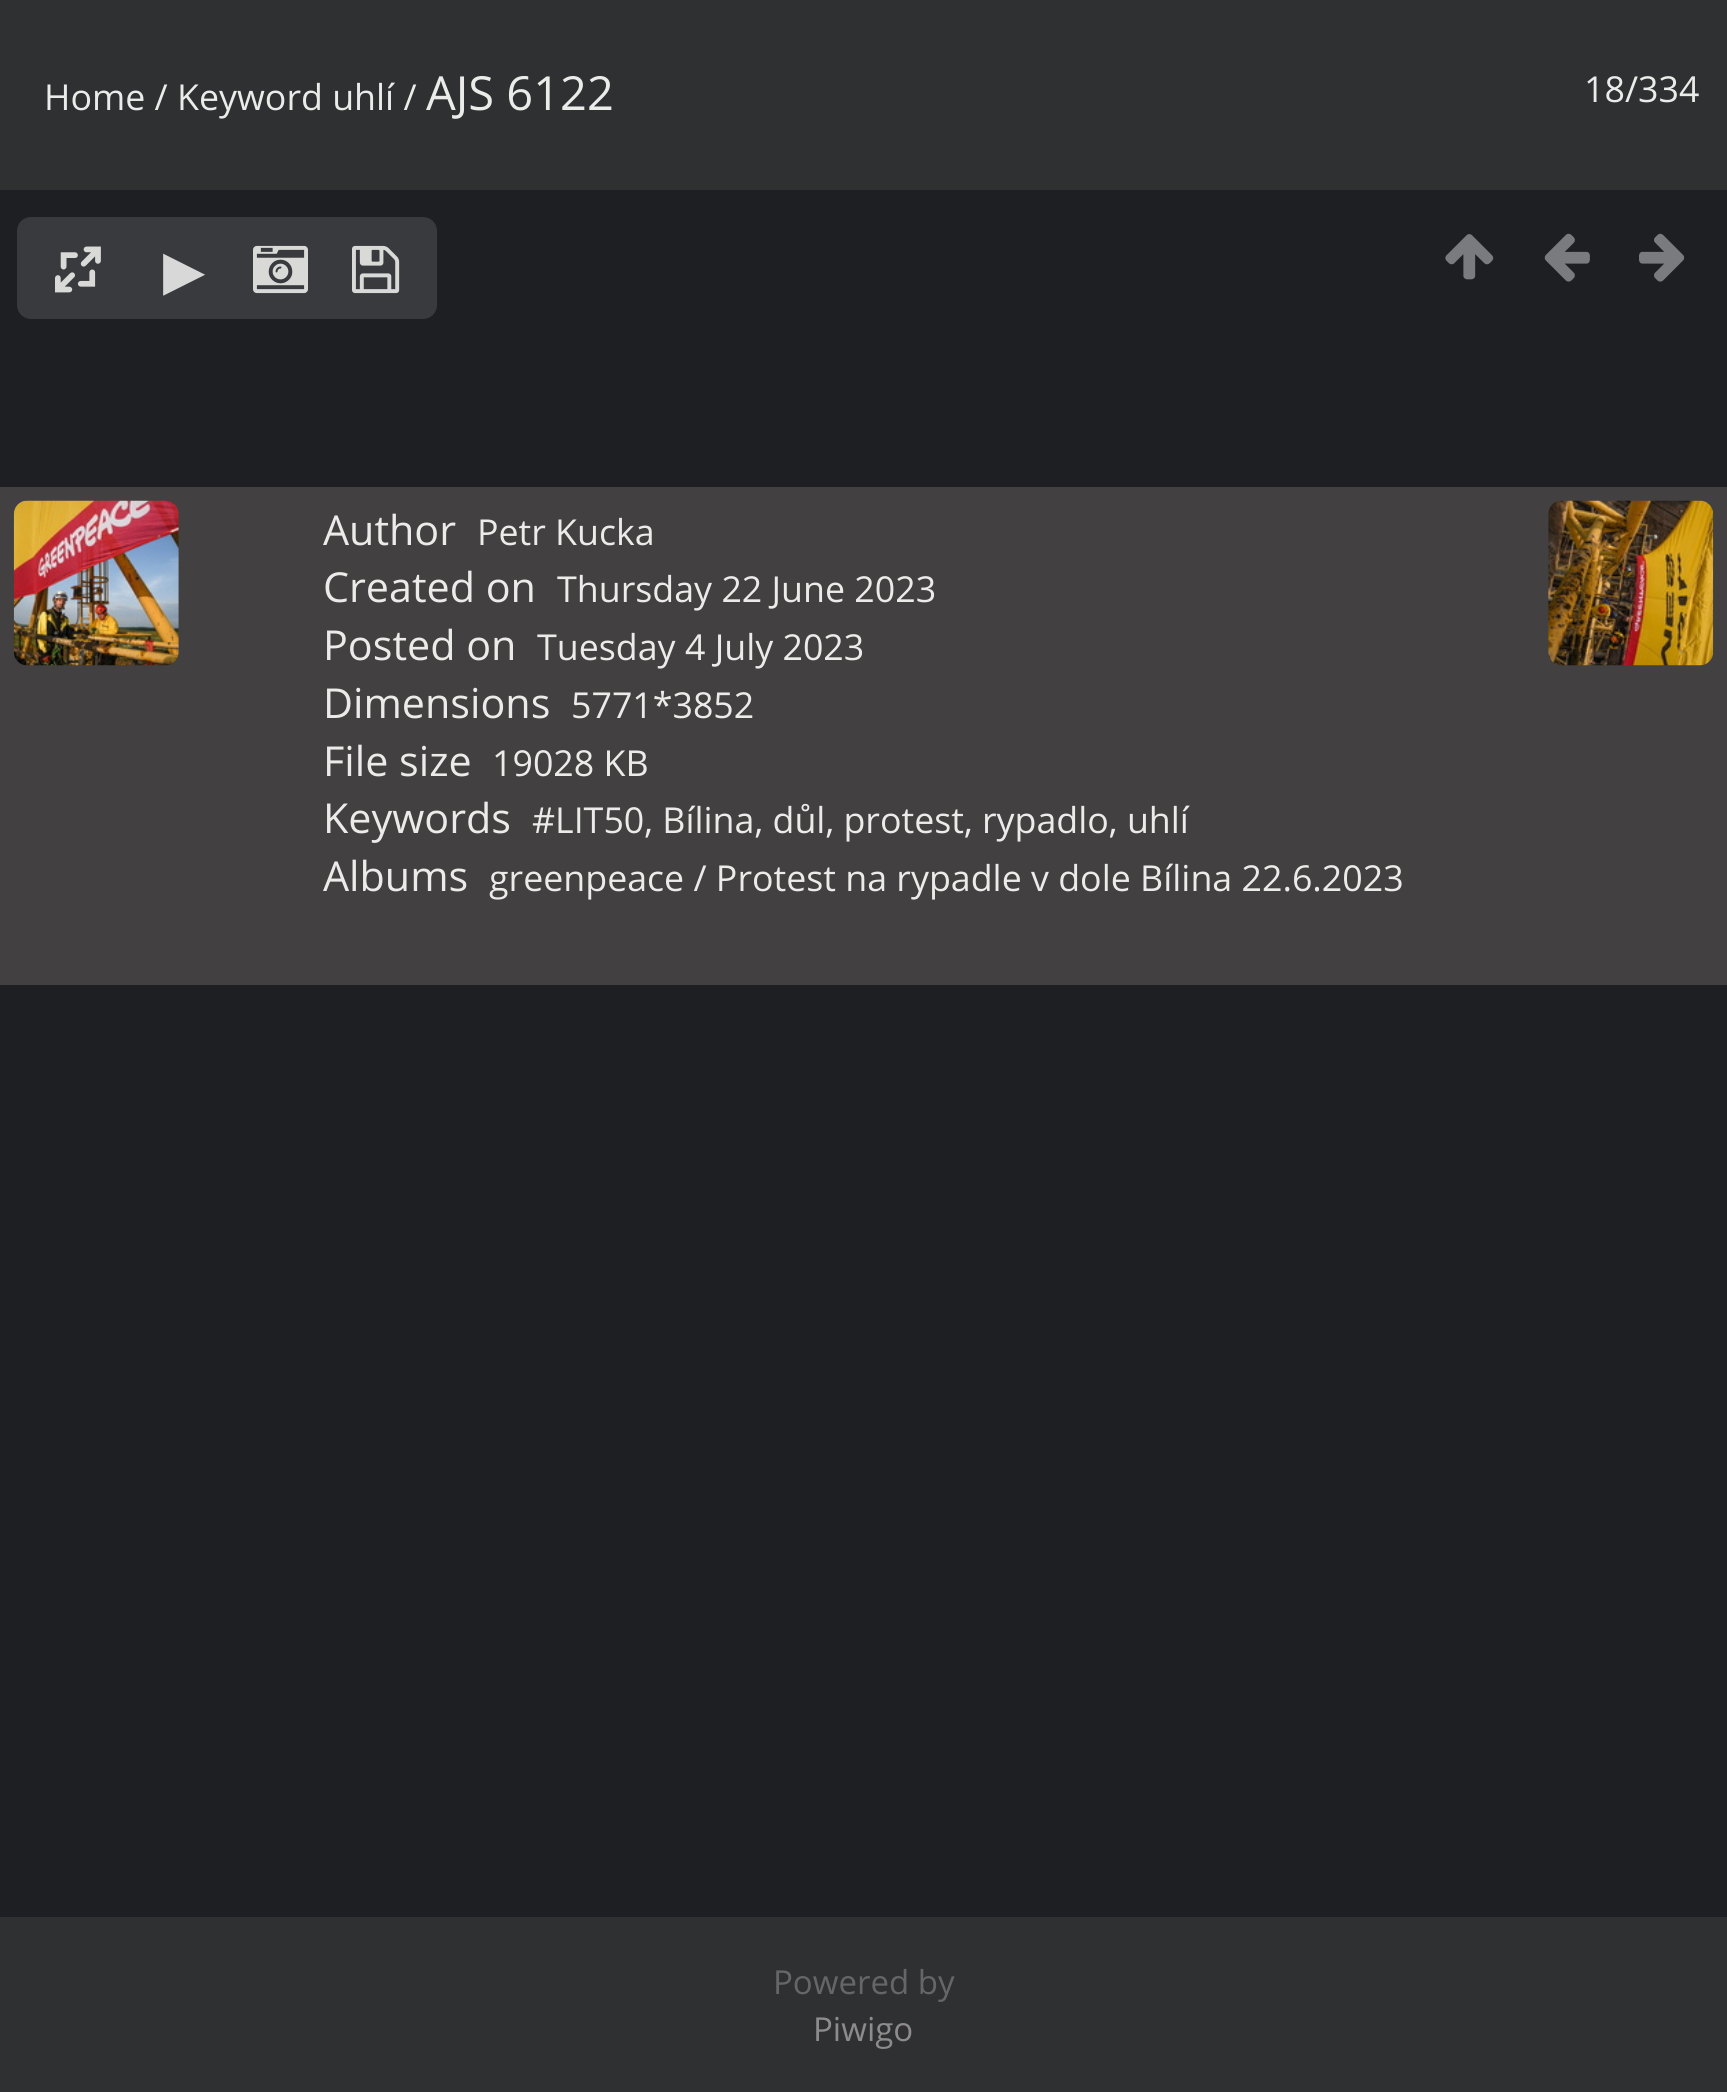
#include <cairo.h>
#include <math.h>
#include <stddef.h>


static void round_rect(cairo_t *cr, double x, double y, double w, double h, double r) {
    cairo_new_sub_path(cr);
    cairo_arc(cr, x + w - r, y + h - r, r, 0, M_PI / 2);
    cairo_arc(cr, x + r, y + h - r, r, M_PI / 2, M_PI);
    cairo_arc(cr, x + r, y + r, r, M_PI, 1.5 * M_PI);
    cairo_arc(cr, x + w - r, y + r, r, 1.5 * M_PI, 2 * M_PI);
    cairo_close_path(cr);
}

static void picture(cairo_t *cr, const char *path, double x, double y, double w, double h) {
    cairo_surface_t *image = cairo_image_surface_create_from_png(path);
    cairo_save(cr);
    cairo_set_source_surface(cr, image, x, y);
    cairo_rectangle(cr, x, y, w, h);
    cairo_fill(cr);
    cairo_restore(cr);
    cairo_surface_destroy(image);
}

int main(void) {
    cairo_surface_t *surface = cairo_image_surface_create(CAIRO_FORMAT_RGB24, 1727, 2092);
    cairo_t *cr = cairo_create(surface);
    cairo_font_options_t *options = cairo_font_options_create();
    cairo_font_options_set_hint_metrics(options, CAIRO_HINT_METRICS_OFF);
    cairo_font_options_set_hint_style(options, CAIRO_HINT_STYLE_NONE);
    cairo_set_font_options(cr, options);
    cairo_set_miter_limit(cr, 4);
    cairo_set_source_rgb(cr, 0.118, 0.122, 0.137);
    cairo_paint(cr);
    cairo_set_source_rgb(cr, 0.184, 0.188, 0.196);
    cairo_rectangle(cr, 0, 0, 1727, 190);
    cairo_fill(cr);
    cairo_select_font_face(cr, "Open Sans", CAIRO_FONT_SLANT_NORMAL, CAIRO_FONT_WEIGHT_NORMAL);
    cairo_set_font_size(cr, 35.75);
    cairo_set_source_rgb(cr, 0.918, 0.918, 0.914);
    cairo_move_to(cr, 44, 110);
    cairo_show_text(cr, "Home / Keyword uhlí /");
    cairo_set_font_size(cr, 47);
    cairo_move_to(cr, 426, 110);
    cairo_show_text(cr, "AJS 6122");
    cairo_set_font_size(cr, 35.75);
    cairo_move_to(cr, 1584, 102);
    cairo_show_text(cr, "18/334");
    cairo_set_source_rgb(cr, 0.224, 0.227, 0.239);
    round_rect(cr, 17, 217, 420, 102, 14);
    cairo_fill(cr);
    picture(cr, "img1.png", 55, 246, 46, 47);
    cairo_select_font_face(cr, "DejaVu Sans", CAIRO_FONT_SLANT_NORMAL, CAIRO_FONT_WEIGHT_NORMAL);
    cairo_set_font_size(cr, 55);
    cairo_set_source_rgb(cr, 0.847, 0.847, 0.847);
    cairo_move_to(cr, 163, 289);
    cairo_show_text(cr, "▶");
    picture(cr, "img2.png", 253, 245, 55, 49);
    picture(cr, "img3.png", 352, 245, 48, 49);
    picture(cr, "img4.png", 1445, 234, 49, 46);
    picture(cr, "img5.png", 1544, 233, 46, 49);
    picture(cr, "img6.png", 1639, 233, 46, 49);
    cairo_set_source_rgb(cr, 0.259, 0.251, 0.251);
    cairo_rectangle(cr, 0, 487, 1727, 498);
    cairo_fill(cr);
    picture(cr, "img7.png", 13, 500, 166, 166);
    picture(cr, "img8.png", 1548, 500, 166, 166);
    cairo_select_font_face(cr, "Open Sans", CAIRO_FONT_SLANT_NORMAL, CAIRO_FONT_WEIGHT_NORMAL);
    cairo_set_font_size(cr, 41.25);
    cairo_set_source_rgb(cr, 0.918, 0.918, 0.914);
    cairo_move_to(cr, 323, 545);
    cairo_show_text(cr, "Author");
    cairo_set_font_size(cr, 35.75);
    cairo_move_to(cr, 477, 545);
    cairo_show_text(cr, "Petr Kucka");
    cairo_set_font_size(cr, 41.25);
    cairo_move_to(cr, 323, 602);
    cairo_show_text(cr, "Created on");
    cairo_set_font_size(cr, 35.75);
    cairo_move_to(cr, 557, 602);
    cairo_show_text(cr, "Thursday 22 June 2023");
    cairo_set_font_size(cr, 41.25);
    cairo_move_to(cr, 323, 660);
    cairo_show_text(cr, "Posted on");
    cairo_set_font_size(cr, 35.75);
    cairo_move_to(cr, 537, 660);
    cairo_show_text(cr, "Tuesday 4 July 2023");
    cairo_set_font_size(cr, 41.25);
    cairo_move_to(cr, 323, 718);
    cairo_show_text(cr, "Dimensions");
    cairo_set_font_size(cr, 35.75);
    cairo_move_to(cr, 571, 718);
    cairo_show_text(cr, "5771*3852");
    cairo_set_font_size(cr, 41.25);
    cairo_move_to(cr, 323, 776);
    cairo_show_text(cr, "File size");
    cairo_set_font_size(cr, 35.75);
    cairo_move_to(cr, 492, 776);
    cairo_show_text(cr, "19028 KB");
    cairo_set_font_size(cr, 41.25);
    cairo_move_to(cr, 323, 833);
    cairo_show_text(cr, "Keywords");
    cairo_set_font_size(cr, 35.75);
    cairo_move_to(cr, 532, 833);
    cairo_show_text(cr, "#LIT50, Bílina, důl, protest, rypadlo, uhlí");
    cairo_set_font_size(cr, 41.25);
    cairo_move_to(cr, 323, 891);
    cairo_show_text(cr, "Albums");
    cairo_set_font_size(cr, 35.75);
    cairo_move_to(cr, 489, 891);
    cairo_show_text(cr, "greenpeace / Protest na rypadle v dole Bílina 22.6.2023");
    cairo_set_source_rgb(cr, 0.184, 0.188, 0.196);
    cairo_rectangle(cr, 0, 1917, 1727, 175);
    cairo_fill(cr);
    cairo_set_font_size(cr, 33);
    cairo_set_source_rgb(cr, 0.4, 0.4, 0.4);
    cairo_move_to(cr, 773, 1994);
    cairo_show_text(cr, "Powered by");
    cairo_set_source_rgb(cr, 0.553, 0.545, 0.545);
    cairo_move_to(cr, 813, 2041);
    cairo_show_text(cr, "Piwigo");
    cairo_surface_write_to_png(surface, "page.png");
    cairo_font_options_destroy(options);
    cairo_destroy(cr);
    cairo_surface_destroy(surface);
    return 0;
}
